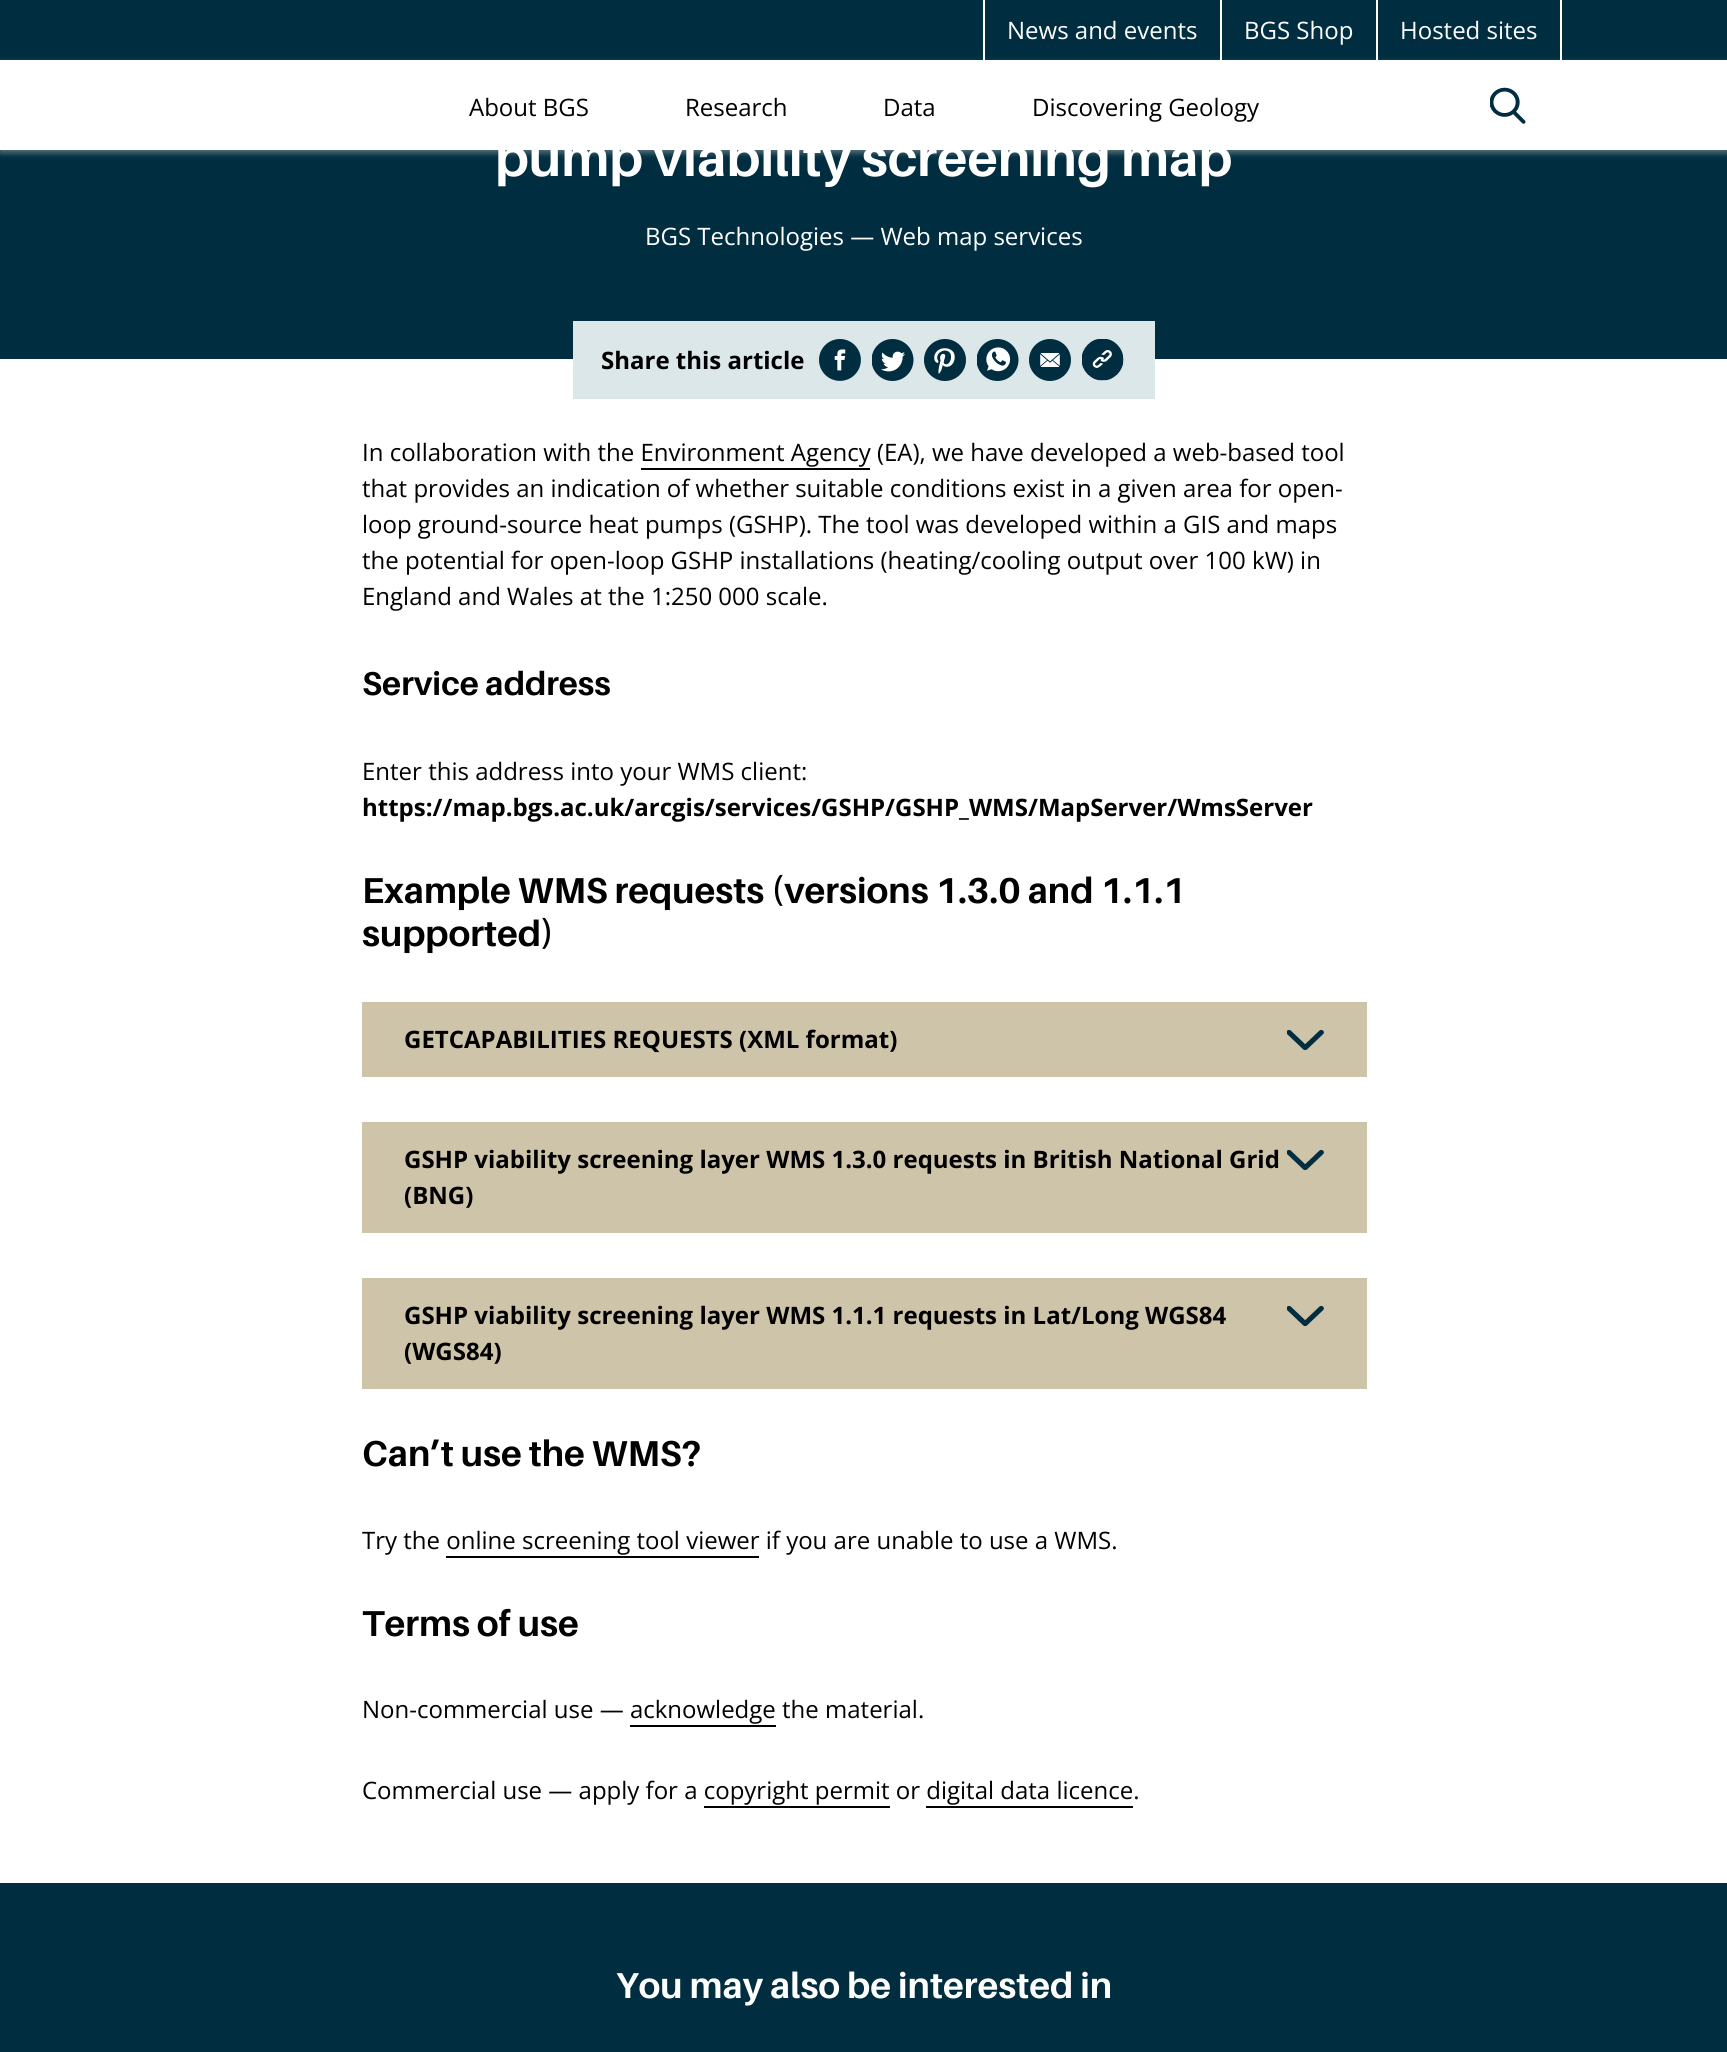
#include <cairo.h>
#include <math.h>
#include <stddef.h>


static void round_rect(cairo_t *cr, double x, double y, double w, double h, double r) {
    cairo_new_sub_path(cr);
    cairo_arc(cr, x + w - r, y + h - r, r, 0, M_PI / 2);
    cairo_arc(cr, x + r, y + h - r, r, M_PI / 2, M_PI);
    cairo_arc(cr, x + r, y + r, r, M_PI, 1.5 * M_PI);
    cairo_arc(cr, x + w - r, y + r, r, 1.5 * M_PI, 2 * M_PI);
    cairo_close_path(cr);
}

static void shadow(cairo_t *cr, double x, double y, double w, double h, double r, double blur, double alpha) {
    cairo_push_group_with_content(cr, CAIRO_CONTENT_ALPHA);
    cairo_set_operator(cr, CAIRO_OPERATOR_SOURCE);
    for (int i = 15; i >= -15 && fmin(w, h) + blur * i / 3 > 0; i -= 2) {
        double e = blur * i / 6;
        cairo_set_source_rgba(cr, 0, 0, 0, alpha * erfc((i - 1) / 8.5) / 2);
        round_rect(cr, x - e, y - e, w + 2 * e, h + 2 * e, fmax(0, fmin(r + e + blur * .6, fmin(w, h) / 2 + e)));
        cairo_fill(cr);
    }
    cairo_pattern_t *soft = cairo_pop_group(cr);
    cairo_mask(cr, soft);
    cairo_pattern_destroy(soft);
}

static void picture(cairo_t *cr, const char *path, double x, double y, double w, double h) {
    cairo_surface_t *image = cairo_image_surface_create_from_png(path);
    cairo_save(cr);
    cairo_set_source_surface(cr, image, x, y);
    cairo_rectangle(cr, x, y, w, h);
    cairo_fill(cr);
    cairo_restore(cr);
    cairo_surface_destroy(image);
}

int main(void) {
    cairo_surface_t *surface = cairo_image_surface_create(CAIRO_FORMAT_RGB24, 1727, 2052);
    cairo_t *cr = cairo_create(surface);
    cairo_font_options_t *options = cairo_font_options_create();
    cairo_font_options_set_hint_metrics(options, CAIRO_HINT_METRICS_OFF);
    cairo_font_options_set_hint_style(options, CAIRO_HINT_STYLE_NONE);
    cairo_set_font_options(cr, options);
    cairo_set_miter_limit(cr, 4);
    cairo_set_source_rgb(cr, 1, 1, 1);
    cairo_paint(cr);
    cairo_set_source_rgb(cr, 0, 0.18, 0.251);
    cairo_rectangle(cr, 0, 0, 1727, 60);
    cairo_fill(cr);
    cairo_set_source_rgb(cr, 1, 1, 1);
    cairo_rectangle(cr, 1220, 0, 2, 60);
    cairo_fill(cr);
    cairo_rectangle(cr, 983, 0, 2, 60);
    cairo_fill(cr);
    cairo_select_font_face(cr, "Open Sans", CAIRO_FONT_SLANT_NORMAL, CAIRO_FONT_WEIGHT_NORMAL);
    cairo_set_font_size(cr, 24);
    cairo_move_to(cr, 1007, 39);
    cairo_show_text(cr, "News and events");
    cairo_rectangle(cr, 1376, 0, 2, 60);
    cairo_fill(cr);
    cairo_move_to(cr, 1244, 39);
    cairo_show_text(cr, "BGS Shop");
    cairo_rectangle(cr, 1560, 0, 2, 60);
    cairo_fill(cr);
    cairo_move_to(cr, 1400, 39);
    cairo_show_text(cr, "Hosted sites");
    cairo_set_source_rgb(cr, 0, 0.18, 0.251);
    cairo_rectangle(cr, 0, 150, 1727, 209);
    cairo_fill(cr);
    cairo_set_source_rgb(cr, 0.718, 0.718, 0.718);
    shadow(cr, 0, 63, 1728, 90, 0, 3, 0.5);
    cairo_set_source_rgb(cr, 1, 1, 1);
    cairo_rectangle(cr, 0, 60, 1727, 90);
    cairo_fill(cr);
    cairo_set_source_rgb(cr, 0, 0, 0);
    cairo_move_to(cr, 469, 116);
    cairo_show_text(cr, "About BGS");
    cairo_move_to(cr, 685, 116);
    cairo_show_text(cr, "Research");
    cairo_move_to(cr, 883, 116);
    cairo_show_text(cr, "Data");
    cairo_move_to(cr, 1032, 116);
    cairo_show_text(cr, "Discovering Geology");
    picture(cr, "img1.png", 1490, 87, 36, 37);
    cairo_select_font_face(cr, "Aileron", CAIRO_FONT_SLANT_NORMAL, CAIRO_FONT_WEIGHT_BOLD);
    cairo_set_font_size(cr, 52.5);
    cairo_set_source_rgb(cr, 1, 1, 1);
    cairo_move_to(cr, 495, 176);
    cairo_show_text(cr, "pump viability screening map");
    cairo_select_font_face(cr, "Open Sans", CAIRO_FONT_SLANT_NORMAL, CAIRO_FONT_WEIGHT_NORMAL);
    cairo_set_font_size(cr, 24);
    cairo_move_to(cr, 645, 245);
    cairo_show_text(cr, "BGS Technologies — Web map services");
    cairo_set_source_rgb(cr, 0.863, 0.906, 0.914);
    cairo_rectangle(cr, 573, 321, 582, 78);
    cairo_fill(cr);
    cairo_select_font_face(cr, "Open Sans", CAIRO_FONT_SLANT_NORMAL, CAIRO_FONT_WEIGHT_BOLD);
    cairo_set_source_rgb(cr, 0, 0, 0);
    cairo_move_to(cr, 601, 369);
    cairo_show_text(cr, "Share this article");
    picture(cr, "img2.png", 819, 339, 42, 42);
    picture(cr, "img3.png", 872, 339, 42, 42);
    picture(cr, "img4.png", 924, 339, 42, 42);
    picture(cr, "img5.png", 977, 339, 42, 42);
    picture(cr, "img6.png", 1029, 339, 42, 42);
    picture(cr, "img7.png", 1082, 339, 42, 42);
    cairo_select_font_face(cr, "Open Sans", CAIRO_FONT_SLANT_NORMAL, CAIRO_FONT_WEIGHT_NORMAL);
    cairo_move_to(cr, 362, 461);
    cairo_show_text(cr, "In collaboration with the Environment Agency (EA), we have developed a web-based tool");
    cairo_rectangle(cr, 641, 468, 229, 2);
    cairo_fill(cr);
    cairo_move_to(cr, 362, 497);
    cairo_show_text(cr, "that provides an indication of whether suitable conditions exist in a given area for open-");
    cairo_move_to(cr, 362, 533);
    cairo_show_text(cr, "loop ground-source heat pumps (GSHP). The tool was developed within a GIS and maps");
    cairo_move_to(cr, 362, 569);
    cairo_show_text(cr, "the potential for open-loop GSHP installations (heating/cooling output over 100 kW) in");
    cairo_move_to(cr, 362, 605);
    cairo_show_text(cr, "England and Wales at the 1:250 000 scale.");
    cairo_select_font_face(cr, "Aileron", CAIRO_FONT_SLANT_NORMAL, CAIRO_FONT_WEIGHT_BOLD);
    cairo_set_font_size(cr, 33);
    cairo_move_to(cr, 362, 695);
    cairo_show_text(cr, "Service address");
    cairo_select_font_face(cr, "Open Sans", CAIRO_FONT_SLANT_NORMAL, CAIRO_FONT_WEIGHT_NORMAL);
    cairo_set_font_size(cr, 24);
    cairo_move_to(cr, 362, 780);
    cairo_show_text(cr, "Enter this address into your WMS client:");
    cairo_select_font_face(cr, "Open Sans", CAIRO_FONT_SLANT_NORMAL, CAIRO_FONT_WEIGHT_BOLD);
    cairo_move_to(cr, 362, 816);
    cairo_show_text(cr, "https://map.bgs.ac.uk/arcgis/services/GSHP/GSHP_WMS/MapServer/WmsServer");
    cairo_select_font_face(cr, "Aileron", CAIRO_FONT_SLANT_NORMAL, CAIRO_FONT_WEIGHT_BOLD);
    cairo_set_font_size(cr, 36);
    cairo_move_to(cr, 362, 903);
    cairo_show_text(cr, "Example WMS requests (versions 1.3.0 and 1.1.1");
    cairo_move_to(cr, 362, 946);
    cairo_show_text(cr, "supported)");
    cairo_set_source_rgb(cr, 0.808, 0.769, 0.663);
    cairo_rectangle(cr, 362, 1002, 1005, 75);
    cairo_fill(cr);
    cairo_select_font_face(cr, "Open Sans", CAIRO_FONT_SLANT_NORMAL, CAIRO_FONT_WEIGHT_BOLD);
    cairo_set_font_size(cr, 24);
    cairo_set_source_rgb(cr, 0, 0, 0);
    cairo_move_to(cr, 404, 1048);
    cairo_show_text(cr, "GETCAPABILITIES REQUESTS (XML format)");
    picture(cr, "img8.png", 1287, 1030, 37, 21);
    cairo_set_source_rgb(cr, 0.808, 0.769, 0.663);
    cairo_rectangle(cr, 362, 1122, 1005, 111);
    cairo_fill(cr);
    cairo_set_source_rgb(cr, 0, 0, 0);
    cairo_move_to(cr, 404, 1168);
    cairo_show_text(cr, "GSHP viability screening layer WMS 1.3.0 requests in British National Grid");
    cairo_move_to(cr, 404, 1204);
    cairo_show_text(cr, "(BNG)");
    picture(cr, "img8.png", 1287, 1150, 37, 21);
    cairo_set_source_rgb(cr, 0.808, 0.769, 0.663);
    cairo_rectangle(cr, 362, 1278, 1005, 111);
    cairo_fill(cr);
    cairo_set_source_rgb(cr, 0, 0, 0);
    cairo_move_to(cr, 404, 1324);
    cairo_show_text(cr, "GSHP viability screening layer WMS 1.1.1 requests in Lat/Long WGS84");
    cairo_move_to(cr, 404, 1360);
    cairo_show_text(cr, "(WGS84)");
    picture(cr, "img8.png", 1287, 1306, 37, 21);
    cairo_select_font_face(cr, "Aileron", CAIRO_FONT_SLANT_NORMAL, CAIRO_FONT_WEIGHT_BOLD);
    cairo_set_font_size(cr, 36);
    cairo_move_to(cr, 362, 1466);
    cairo_show_text(cr, "Can’t use the WMS?");
    cairo_select_font_face(cr, "Open Sans", CAIRO_FONT_SLANT_NORMAL, CAIRO_FONT_WEIGHT_NORMAL);
    cairo_set_font_size(cr, 24);
    cairo_move_to(cr, 362, 1549);
    cairo_show_text(cr, "Try the online screening tool viewer if you are unable to use a WMS.");
    cairo_rectangle(cr, 446, 1556, 313, 2);
    cairo_fill(cr);
    cairo_select_font_face(cr, "Aileron", CAIRO_FONT_SLANT_NORMAL, CAIRO_FONT_WEIGHT_BOLD);
    cairo_set_font_size(cr, 36);
    cairo_move_to(cr, 362, 1636);
    cairo_show_text(cr, "Terms of use");
    cairo_select_font_face(cr, "Open Sans", CAIRO_FONT_SLANT_NORMAL, CAIRO_FONT_WEIGHT_NORMAL);
    cairo_set_font_size(cr, 24);
    cairo_move_to(cr, 362, 1718);
    cairo_show_text(cr, "Non-commercial use — acknowledge the material.");
    cairo_rectangle(cr, 630, 1725, 146, 2);
    cairo_fill(cr);
    cairo_move_to(cr, 362, 1799);
    cairo_show_text(cr, "Commercial use — apply for a copyright permit or digital data licence.");
    cairo_rectangle(cr, 704, 1806, 186, 2);
    cairo_fill(cr);
    cairo_rectangle(cr, 926, 1806, 207, 2);
    cairo_fill(cr);
    cairo_set_source_rgb(cr, 0, 0.18, 0.251);
    cairo_rectangle(cr, 0, 1883, 1727, 169);
    cairo_fill(cr);
    cairo_select_font_face(cr, "Aileron", CAIRO_FONT_SLANT_NORMAL, CAIRO_FONT_WEIGHT_BOLD);
    cairo_set_font_size(cr, 36);
    cairo_set_source_rgb(cr, 1, 1, 1);
    cairo_move_to(cr, 616, 1998);
    cairo_show_text(cr, "You may also be interested in");
    cairo_surface_write_to_png(surface, "page.png");
    cairo_font_options_destroy(options);
    cairo_destroy(cr);
    cairo_surface_destroy(surface);
    return 0;
}
